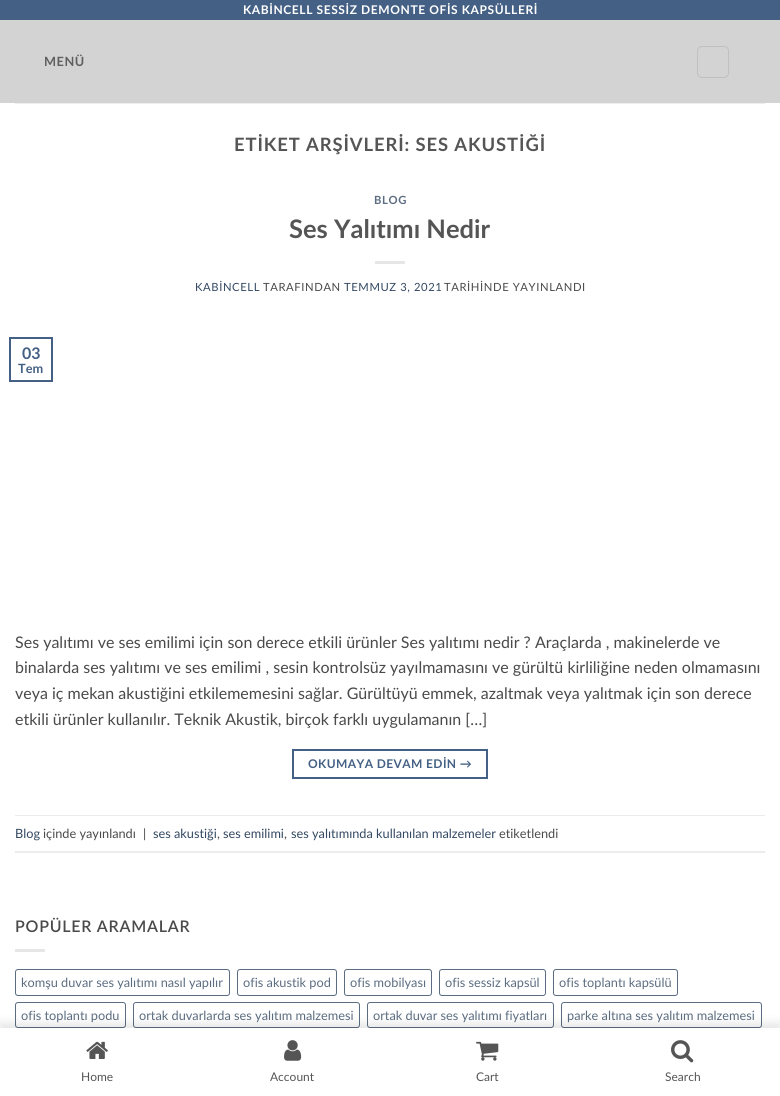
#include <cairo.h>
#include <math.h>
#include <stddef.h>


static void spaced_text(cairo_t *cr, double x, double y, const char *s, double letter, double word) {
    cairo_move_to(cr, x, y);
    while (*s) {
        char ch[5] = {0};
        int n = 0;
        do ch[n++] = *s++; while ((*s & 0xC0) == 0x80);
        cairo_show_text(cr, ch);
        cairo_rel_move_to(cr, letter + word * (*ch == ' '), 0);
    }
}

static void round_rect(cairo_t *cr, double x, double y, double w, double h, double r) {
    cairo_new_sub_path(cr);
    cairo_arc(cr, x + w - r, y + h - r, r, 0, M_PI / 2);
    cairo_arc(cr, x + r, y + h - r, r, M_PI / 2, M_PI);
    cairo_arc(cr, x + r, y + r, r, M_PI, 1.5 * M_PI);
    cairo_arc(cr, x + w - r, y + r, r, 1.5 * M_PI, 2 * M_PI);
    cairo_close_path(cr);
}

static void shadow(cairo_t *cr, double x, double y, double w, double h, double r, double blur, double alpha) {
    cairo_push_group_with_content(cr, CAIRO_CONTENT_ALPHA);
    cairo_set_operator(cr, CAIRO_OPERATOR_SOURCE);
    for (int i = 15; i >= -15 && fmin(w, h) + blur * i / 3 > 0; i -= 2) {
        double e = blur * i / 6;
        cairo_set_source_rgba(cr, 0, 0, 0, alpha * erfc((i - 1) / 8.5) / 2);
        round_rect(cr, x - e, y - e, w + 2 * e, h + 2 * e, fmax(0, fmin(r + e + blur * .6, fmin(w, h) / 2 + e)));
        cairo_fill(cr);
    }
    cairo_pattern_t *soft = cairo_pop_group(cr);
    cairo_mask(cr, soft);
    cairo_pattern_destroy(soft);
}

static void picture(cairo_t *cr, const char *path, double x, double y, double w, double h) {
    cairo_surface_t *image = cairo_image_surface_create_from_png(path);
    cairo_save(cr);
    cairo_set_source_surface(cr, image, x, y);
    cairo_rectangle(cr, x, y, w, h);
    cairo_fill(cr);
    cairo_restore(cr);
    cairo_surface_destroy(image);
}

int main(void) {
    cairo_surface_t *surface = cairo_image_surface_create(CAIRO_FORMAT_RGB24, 780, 1096);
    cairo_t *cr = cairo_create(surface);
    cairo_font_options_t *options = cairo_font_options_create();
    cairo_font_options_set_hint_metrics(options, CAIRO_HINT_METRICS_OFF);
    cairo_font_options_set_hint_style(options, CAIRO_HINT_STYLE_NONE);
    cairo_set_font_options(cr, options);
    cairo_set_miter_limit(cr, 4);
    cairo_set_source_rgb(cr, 1, 1, 1);
    cairo_paint(cr);
    cairo_set_source_rgb(cr, 0.267, 0.376, 0.518);
    cairo_rectangle(cr, 0, 0, 780, 20);
    cairo_fill(cr);
    cairo_select_font_face(cr, "Lato", CAIRO_FONT_SLANT_NORMAL, CAIRO_FONT_WEIGHT_BOLD);
    cairo_set_font_size(cr, 12);
    cairo_set_source_rgb(cr, 1, 1, 1);
    spaced_text(cr, 243, 14, "KABİNCELL SESSİZ DEMONTE OFİS KAPSÜLLERİ", 0.6, 0);
    cairo_set_source_rgb(cr, 0.827, 0.827, 0.827);
    cairo_rectangle(cr, 0, 20, 780, 83);
    cairo_fill(cr);
    cairo_set_font_size(cr, 12.75);
    cairo_set_source_rgb(cr, 0.373, 0.373, 0.373);
    spaced_text(cr, 44, 66, "MENÜ", 0.5, 0);
    round_rect(cr, 697.5, 46.5, 31, 31, 4.5);
    cairo_set_source_rgb(cr, 0.753, 0.753, 0.753);
    cairo_set_line_width(cr, 1);
    cairo_stroke(cr);
    cairo_set_source_rgb(cr, 0.929, 0.929, 0.929);
    cairo_rectangle(cr, 15, 103, 750, 1);
    cairo_fill(cr);
    cairo_set_font_size(cr, 18.4);
    cairo_set_source_rgb(cr, 0.333, 0.333, 0.333);
    spaced_text(cr, 234, 151, "ETİKET ARŞİVLERİ: SES AKUSTİĞİ", 0.9, 0);
    cairo_set_font_size(cr, 11.25);
    cairo_set_source_rgb(cr, 0.361, 0.427, 0.506);
    spaced_text(cr, 374, 204, "BLOG", 0.6, 0);
    cairo_set_font_size(cr, 25.5);
    cairo_set_source_rgb(cr, 0.333, 0.333, 0.333);
    cairo_move_to(cr, 289, 238);
    cairo_show_text(cr, "Ses Yalıtımı Nedir");
    cairo_set_source_rgb(cr, 0.902, 0.902, 0.902);
    cairo_rectangle(cr, 375, 261, 30, 3);
    cairo_fill(cr);
    cairo_select_font_face(cr, "Lato", CAIRO_FONT_SLANT_NORMAL, CAIRO_FONT_WEIGHT_NORMAL);
    cairo_set_font_size(cr, 11.25);
    cairo_set_source_rgb(cr, 0.2, 0.282, 0.384);
    spaced_text(cr, 195, 291, "KABİNCELL", 0.6, 0);
    cairo_set_source_rgb(cr, 0.29, 0.29, 0.29);
    spaced_text(cr, 263, 291, "TARAFINDAN", 0.6, 0);
    cairo_set_source_rgb(cr, 0.2, 0.282, 0.384);
    spaced_text(cr, 344, 291, "TEMMUZ 3, 2021", 0.6, 0);
    cairo_set_source_rgb(cr, 0.29, 0.29, 0.29);
    spaced_text(cr, 444, 291, "TARİHİNDE YAYINLANDI", 0.6, 0);
    cairo_rectangle(cr, 10, 338, 42, 43);
    cairo_set_source_rgb(cr, 0.267, 0.376, 0.518);
    cairo_set_line_width(cr, 2);
    cairo_stroke(cr);
    cairo_select_font_face(cr, "Lato", CAIRO_FONT_SLANT_NORMAL, CAIRO_FONT_WEIGHT_BOLD);
    cairo_set_font_size(cr, 16);
    cairo_move_to(cr, 22, 359);
    cairo_show_text(cr, "03");
    cairo_set_font_size(cr, 12.75);
    cairo_move_to(cr, 18, 373);
    cairo_show_text(cr, "Tem");
    cairo_select_font_face(cr, "Lato", CAIRO_FONT_SLANT_NORMAL, CAIRO_FONT_WEIGHT_NORMAL);
    cairo_set_font_size(cr, 16);
    cairo_set_source_rgb(cr, 0.29, 0.29, 0.29);
    cairo_move_to(cr, 15, 648);
    cairo_show_text(cr, "Ses yalıtımı ve ses emilimi için son derece etkili ürünler Ses yalıtımı nedir ? Araçlarda , makinelerde ve");
    cairo_move_to(cr, 15, 673);
    cairo_show_text(cr, "binalarda ses yalıtımı ve ses emilimi , sesin kontrolsüz yayılmamasını ve gürültü kirliliğine neden olmamasını");
    cairo_move_to(cr, 15, 699);
    cairo_show_text(cr, "veya iç mekan akustiğini etkilememesini sağlar. Gürültüyü emmek, azaltmak veya yalıtmak için son derece");
    cairo_move_to(cr, 15, 725);
    cairo_show_text(cr, "etkili ürünler kullanılır. Teknik Akustik, birçok farklı uygulamanın […]");
    cairo_rectangle(cr, 293, 750, 194, 28);
    cairo_set_source_rgb(cr, 0.267, 0.376, 0.518);
    cairo_stroke(cr);
    cairo_select_font_face(cr, "Lato", CAIRO_FONT_SLANT_NORMAL, CAIRO_FONT_WEIGHT_BOLD);
    cairo_set_font_size(cr, 12);
    spaced_text(cr, 308, 768, "OKUMAYA DEVAM EDİN →", 0.4, 0);
    cairo_set_source_rgb(cr, 0.925, 0.925, 0.925);
    cairo_rectangle(cr, 15, 815, 750, 1);
    cairo_fill(cr);
    cairo_rectangle(cr, 15, 851, 750, 2);
    cairo_fill(cr);
    cairo_select_font_face(cr, "Lato", CAIRO_FONT_SLANT_NORMAL, CAIRO_FONT_WEIGHT_NORMAL);
    cairo_set_font_size(cr, 12.75);
    cairo_set_source_rgb(cr, 0.2, 0.282, 0.384);
    cairo_move_to(cr, 15, 838);
    cairo_show_text(cr, "Blog");
    cairo_set_source_rgb(cr, 0.29, 0.29, 0.29);
    cairo_move_to(cr, 43, 838);
    cairo_show_text(cr, "içinde yayınlandı");
    cairo_move_to(cr, 143, 838);
    cairo_show_text(cr, "|");
    cairo_set_source_rgb(cr, 0.2, 0.282, 0.384);
    cairo_move_to(cr, 153, 838);
    cairo_show_text(cr, "ses akustiği");
    cairo_set_source_rgb(cr, 0.29, 0.29, 0.29);
    cairo_move_to(cr, 217, 838);
    cairo_show_text(cr, ",");
    cairo_set_source_rgb(cr, 0.2, 0.282, 0.384);
    cairo_move_to(cr, 223, 838);
    cairo_show_text(cr, "ses emilimi");
    cairo_set_source_rgb(cr, 0.29, 0.29, 0.29);
    cairo_move_to(cr, 284, 838);
    cairo_show_text(cr, ",");
    cairo_set_source_rgb(cr, 0.2, 0.282, 0.384);
    cairo_move_to(cr, 291, 838);
    cairo_show_text(cr, "ses yalıtımında kullanılan malzemeler");
    cairo_set_source_rgb(cr, 0.29, 0.29, 0.29);
    cairo_move_to(cr, 499, 838);
    cairo_show_text(cr, "etiketlendi");
    cairo_select_font_face(cr, "Lato SemiBold", CAIRO_FONT_SLANT_NORMAL, CAIRO_FONT_WEIGHT_NORMAL);
    cairo_set_font_size(cr, 16);
    spaced_text(cr, 15, 932, "POPÜLER ARAMALAR", 0.75, 0);
    cairo_set_source_rgb(cr, 0.902, 0.902, 0.902);
    cairo_rectangle(cr, 15, 949, 30, 3);
    cairo_fill(cr);
    round_rect(cr, 15.5, 969.5, 214, 26, 2.5);
    cairo_set_source_rgb(cr, 0.361, 0.427, 0.506);
    cairo_set_line_width(cr, 1);
    cairo_stroke(cr);
    cairo_select_font_face(cr, "Lato", CAIRO_FONT_SLANT_NORMAL, CAIRO_FONT_WEIGHT_NORMAL);
    cairo_set_font_size(cr, 12.75);
    cairo_move_to(cr, 21, 987);
    cairo_show_text(cr, "komşu duvar ses yalıtımı nasıl yapılır");
    round_rect(cr, 237.5, 969.5, 99, 26, 2.5);
    cairo_stroke(cr);
    cairo_move_to(cr, 243, 987);
    cairo_show_text(cr, "ofis akustik pod");
    round_rect(cr, 344.5, 969.5, 87, 26, 2.5);
    cairo_stroke(cr);
    cairo_move_to(cr, 350, 987);
    cairo_show_text(cr, "ofis mobilyası");
    round_rect(cr, 439.5, 969.5, 106, 26, 2.5);
    cairo_stroke(cr);
    cairo_move_to(cr, 445, 987);
    cairo_show_text(cr, "ofis sessiz kapsül");
    round_rect(cr, 553.5, 969.5, 124, 26, 2.5);
    cairo_stroke(cr);
    cairo_move_to(cr, 559, 987);
    cairo_show_text(cr, "ofis toplantı kapsülü");
    round_rect(cr, 15.5, 1002.5, 110, 25, 2.5);
    cairo_stroke(cr);
    cairo_move_to(cr, 21, 1020);
    cairo_show_text(cr, "ofis toplantı podu");
    round_rect(cr, 133.5, 1002.5, 226, 25, 2.5);
    cairo_stroke(cr);
    cairo_move_to(cr, 139, 1020);
    cairo_show_text(cr, "ortak duvarlarda ses yalıtım malzemesi");
    round_rect(cr, 367.5, 1002.5, 186, 25, 2.5);
    cairo_stroke(cr);
    cairo_move_to(cr, 373, 1020);
    cairo_show_text(cr, "ortak duvar ses yalıtımı fiyatları");
    round_rect(cr, 561.5, 1002.5, 200, 25, 2.5);
    cairo_stroke(cr);
    cairo_move_to(cr, 567, 1020);
    cairo_show_text(cr, "parke altına ses yalıtım malzemesi");
    cairo_set_source_rgb(cr, 0, 0, 0);
    shadow(cr, 0, 1023, 780, 68, 0, 5, 0.1);
    cairo_set_source_rgb(cr, 1, 1, 1);
    cairo_rectangle(cr, 0, 1028, 780, 68);
    cairo_fill(cr);
    picture(cr, "img1.png", 86, 1041, 22, 18);
    cairo_set_font_size(cr, 12);
    cairo_set_source_rgb(cr, 0.333, 0.333, 0.333);
    cairo_move_to(cr, 81, 1081);
    cairo_show_text(cr, "Home");
    picture(cr, "img2.png", 284, 1040, 18, 21);
    cairo_move_to(cr, 270, 1081);
    cairo_show_text(cr, "Account");
    picture(cr, "img3.png", 476, 1041, 23, 20);
    cairo_move_to(cr, 476, 1081);
    cairo_show_text(cr, "Cart");
    picture(cr, "img4.png", 671, 1040, 23, 23);
    cairo_move_to(cr, 665, 1081);
    cairo_show_text(cr, "Search");
    cairo_surface_write_to_png(surface, "page.png");
    cairo_font_options_destroy(options);
    cairo_destroy(cr);
    cairo_surface_destroy(surface);
    return 0;
}
